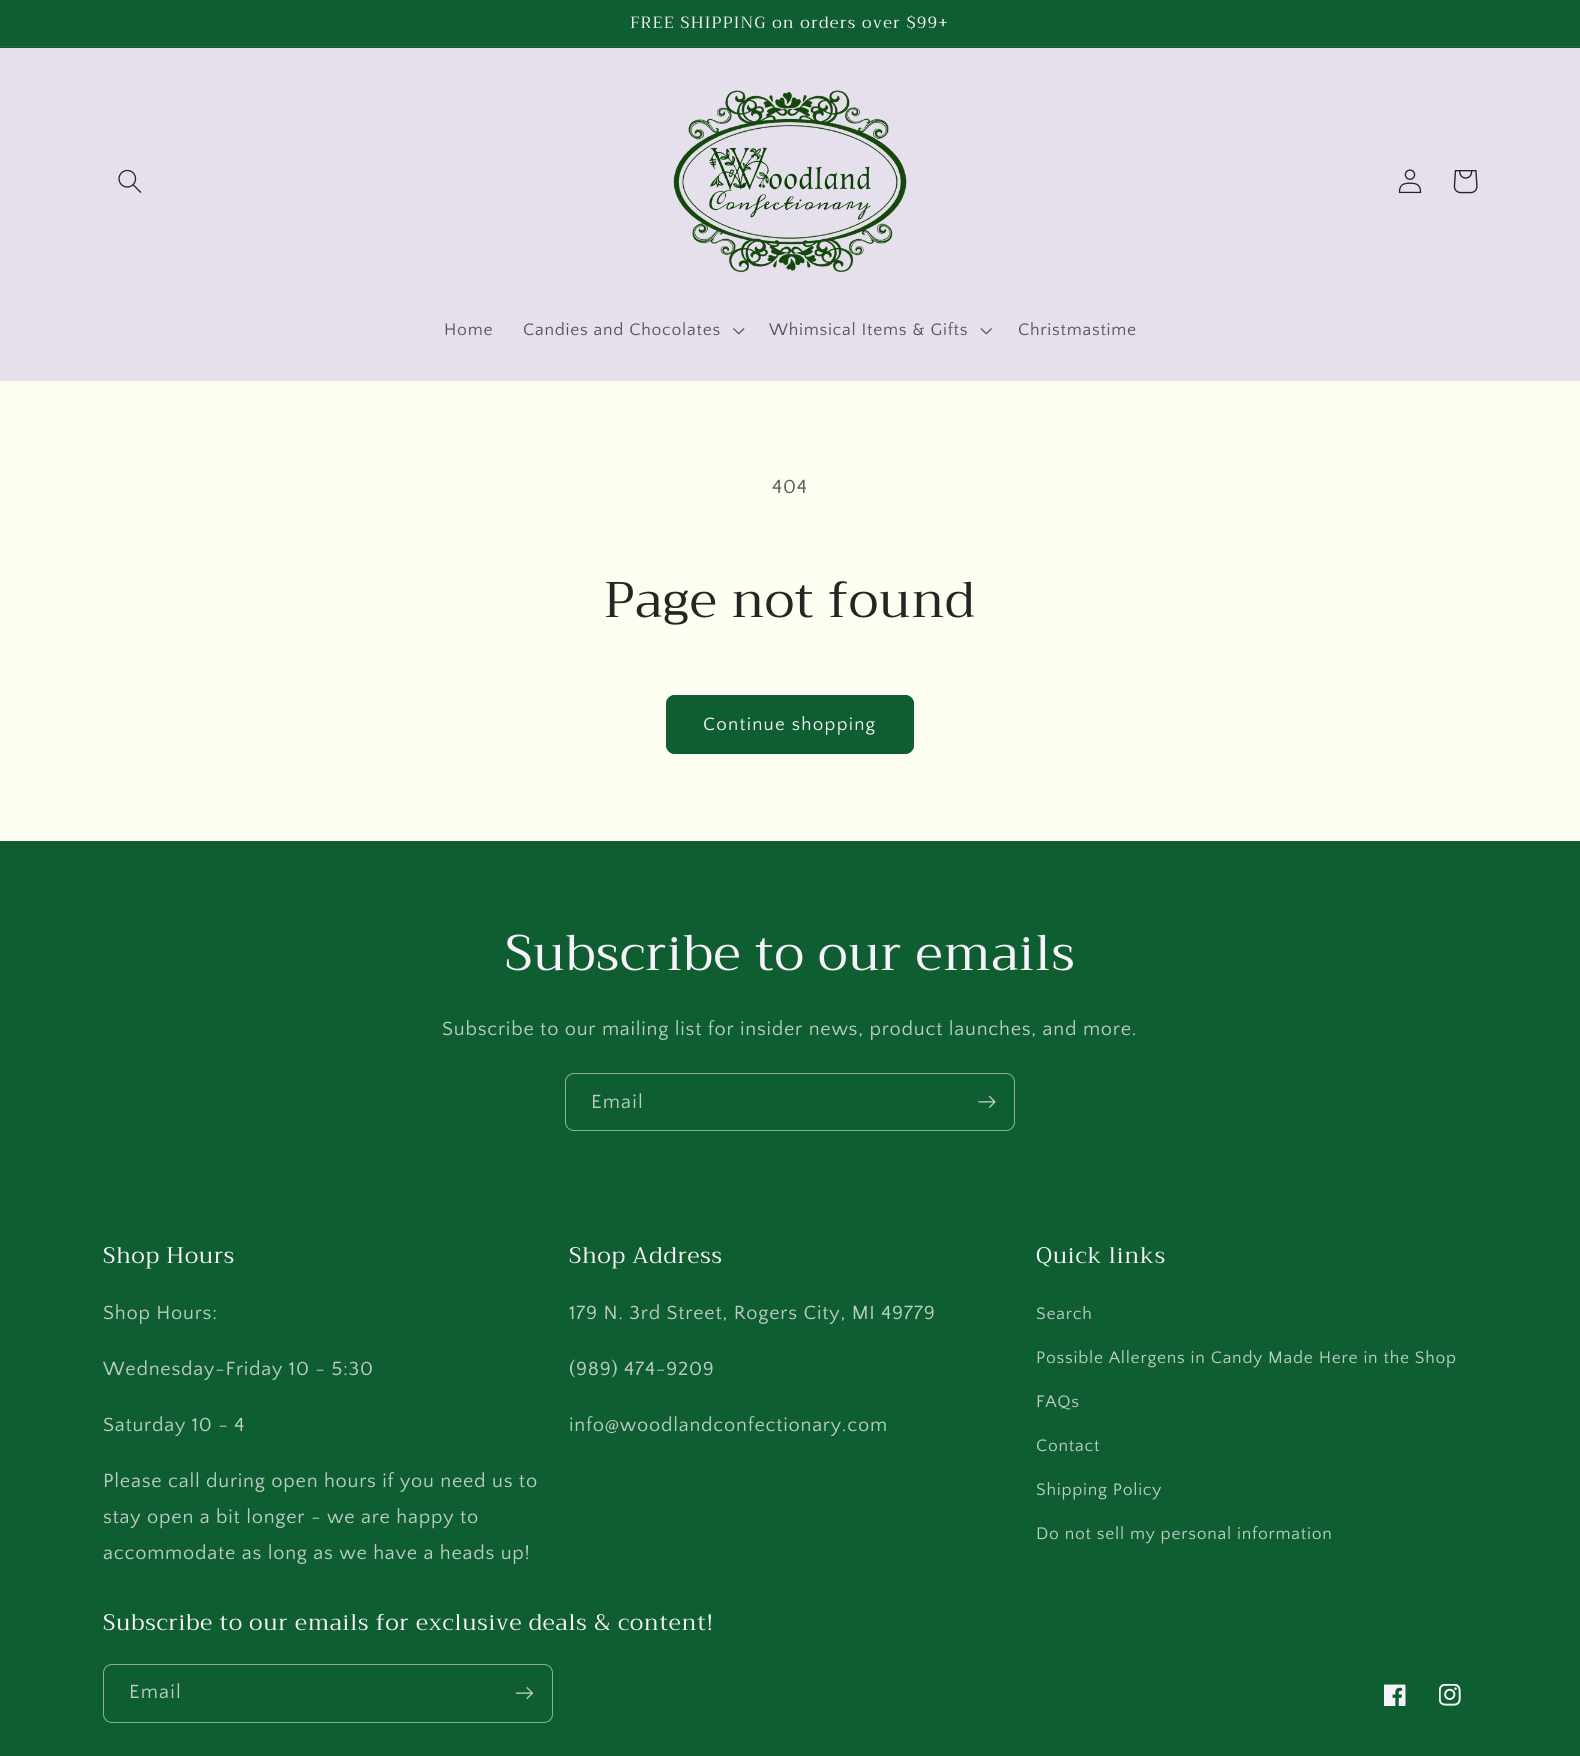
#include <cairo.h>
#include <math.h>
#include <stddef.h>


static void spaced_text(cairo_t *cr, double x, double y, const char *s, double letter, double word) {
    cairo_move_to(cr, x, y);
    while (*s) {
        char ch[5] = {0};
        int n = 0;
        do ch[n++] = *s++; while ((*s & 0xC0) == 0x80);
        cairo_show_text(cr, ch);
        cairo_rel_move_to(cr, letter + word * (*ch == ' '), 0);
    }
}

static void round_rect(cairo_t *cr, double x, double y, double w, double h, double r) {
    cairo_new_sub_path(cr);
    cairo_arc(cr, x + w - r, y + h - r, r, 0, M_PI / 2);
    cairo_arc(cr, x + r, y + h - r, r, M_PI / 2, M_PI);
    cairo_arc(cr, x + r, y + r, r, M_PI, 1.5 * M_PI);
    cairo_arc(cr, x + w - r, y + r, r, 1.5 * M_PI, 2 * M_PI);
    cairo_close_path(cr);
}

static void picture(cairo_t *cr, const char *path, double x, double y, double w, double h) {
    cairo_surface_t *image = cairo_image_surface_create_from_png(path);
    cairo_save(cr);
    cairo_set_source_surface(cr, image, x, y);
    cairo_rectangle(cr, x, y, w, h);
    cairo_fill(cr);
    cairo_restore(cr);
    cairo_surface_destroy(image);
}

int main(void) {
    cairo_surface_t *surface = cairo_image_surface_create(CAIRO_FORMAT_RGB24, 1580, 1756);
    cairo_t *cr = cairo_create(surface);
    cairo_font_options_t *options = cairo_font_options_create();
    cairo_font_options_set_hint_metrics(options, CAIRO_HINT_METRICS_OFF);
    cairo_font_options_set_hint_style(options, CAIRO_HINT_STYLE_NONE);
    cairo_set_font_options(cr, options);
    cairo_set_miter_limit(cr, 4);
    cairo_set_source_rgb(cr, 0.992, 0.992, 0.945);
    cairo_paint(cr);
    cairo_set_source_rgb(cr, 0.059, 0.369, 0.192);
    cairo_rectangle(cr, 0, 0, 1580, 48);
    cairo_fill(cr);
    cairo_set_source_rgb(cr, 0.129, 0.416, 0.255);
    cairo_rectangle(cr, 0, 46, 1580, 1);
    cairo_fill(cr);
    cairo_select_font_face(cr, "Trirong", CAIRO_FONT_SLANT_NORMAL, CAIRO_FONT_WEIGHT_NORMAL);
    cairo_set_font_size(cr, 16.25);
    cairo_set_source_rgb(cr, 0.965, 0.949, 0.98);
    spaced_text(cr, 630, 28, "FREE SHIPPING on orders over $99+", 1.25, 0);
    cairo_set_source_rgb(cr, 0.902, 0.878, 0.925);
    cairo_rectangle(cr, 0, 48, 1580, 333);
    cairo_fill(cr);
    picture(cr, "img1.png", 118, 169, 24, 24);
    picture(cr, "img2.png", 673, 90, 234, 183);
    picture(cr, "img3.png", 1398, 169, 24, 25);
    picture(cr, "img4.png", 1453, 170, 25, 24);
    cairo_select_font_face(cr, "Quattrocento Sans", CAIRO_FONT_SLANT_NORMAL, CAIRO_FONT_WEIGHT_NORMAL);
    cairo_set_font_size(cr, 17.5);
    cairo_set_source_rgb(cr, 0.333, 0.329, 0.341);
    spaced_text(cr, 444, 335, "Home", 0.75, 0);
    spaced_text(cr, 523, 335, "Candies and Chocolates", 0.75, 0);
    picture(cr, "img5.png", 733, 328, 12, 7);
    spaced_text(cr, 769, 335, "Whimsical Items & Gifts", 0.75, 0);
    picture(cr, "img6.png", 980, 328, 12, 7);
    spaced_text(cr, 1018, 335, "Christmastime", 0.75, 0);
    cairo_set_font_size(cr, 20);
    cairo_set_source_rgb(cr, 0.357, 0.357, 0.345);
    spaced_text(cr, 772, 493, "404", 0.75, 0);
    cairo_select_font_face(cr, "Trirong", CAIRO_FONT_SLANT_NORMAL, CAIRO_FONT_WEIGHT_NORMAL);
    cairo_set_font_size(cr, 50);
    cairo_set_source_rgb(cr, 0.145, 0.145, 0.145);
    spaced_text(cr, 604, 617, "Page not found", 0.75, 0);
    cairo_set_source_rgb(cr, 0.059, 0.369, 0.192);
    round_rect(cr, 666, 695, 248, 59, 9);
    cairo_fill(cr);
    round_rect(cr, 666.5, 695.5, 247, 58, 8.5);
    cairo_set_line_width(cr, 1);
    cairo_stroke(cr);
    cairo_select_font_face(cr, "Quattrocento Sans", CAIRO_FONT_SLANT_NORMAL, CAIRO_FONT_WEIGHT_NORMAL);
    cairo_set_font_size(cr, 18.75);
    cairo_set_source_rgb(cr, 0.965, 0.949, 0.98);
    spaced_text(cr, 703, 730, "Continue shopping", 1.25, 0);
    cairo_set_source_rgb(cr, 0.059, 0.369, 0.192);
    cairo_rectangle(cr, 0, 841, 1580, 915);
    cairo_fill(cr);
    cairo_select_font_face(cr, "Trirong", CAIRO_FONT_SLANT_NORMAL, CAIRO_FONT_WEIGHT_NORMAL);
    cairo_set_font_size(cr, 50);
    cairo_set_source_rgb(cr, 0.965, 0.949, 0.98);
    spaced_text(cr, 505, 970, "Subscribe to our emails", 0.75, 0);
    cairo_select_font_face(cr, "Quattrocento Sans", CAIRO_FONT_SLANT_NORMAL, CAIRO_FONT_WEIGHT_NORMAL);
    cairo_set_font_size(cr, 20);
    cairo_set_source_rgb(cr, 0.737, 0.804, 0.784);
    spaced_text(cr, 442, 1035, "Subscribe to our mailing list for insider news, product launches, and more.", 0.75, 0);
    round_rect(cr, 565.5, 1073.5, 449, 57, 8.5);
    cairo_set_source_rgb(cr, 0.557, 0.686, 0.627);
    cairo_stroke(cr);
    cairo_set_source_rgb(cr, 0.737, 0.804, 0.784);
    spaced_text(cr, 591, 1108, "Email", 1.25, 0);
    picture(cr, "img7.png", 978, 1095, 18, 13);
    cairo_select_font_face(cr, "Trirong", CAIRO_FONT_SLANT_NORMAL, CAIRO_FONT_WEIGHT_NORMAL);
    cairo_set_font_size(cr, 22.5);
    cairo_set_source_rgb(cr, 0.965, 0.949, 0.98);
    spaced_text(cr, 103, 1263, "Shop Hours", 0.75, 0);
    cairo_select_font_face(cr, "Quattrocento Sans", CAIRO_FONT_SLANT_NORMAL, CAIRO_FONT_WEIGHT_NORMAL);
    cairo_set_font_size(cr, 20);
    cairo_set_source_rgb(cr, 0.737, 0.804, 0.784);
    spaced_text(cr, 103, 1319, "Shop Hours:", 0.75, 0);
    spaced_text(cr, 103, 1375, "Wednesday-Friday 10 - 5:30", 0.75, 0);
    spaced_text(cr, 103, 1431, "Saturday 10 - 4", 0.75, 0);
    spaced_text(cr, 103, 1487, "Please call during open hours if you need us to", 0.75, 0);
    spaced_text(cr, 103, 1523, "stay open a bit longer - we are happy to", 0.75, 0);
    spaced_text(cr, 103, 1559, "accommodate as long as we have a heads up!", 0.75, 0);
    cairo_select_font_face(cr, "Trirong", CAIRO_FONT_SLANT_NORMAL, CAIRO_FONT_WEIGHT_NORMAL);
    cairo_set_font_size(cr, 22.5);
    cairo_set_source_rgb(cr, 0.965, 0.949, 0.98);
    spaced_text(cr, 569, 1263, "Shop Address", 0.75, 0);
    cairo_select_font_face(cr, "Quattrocento Sans", CAIRO_FONT_SLANT_NORMAL, CAIRO_FONT_WEIGHT_NORMAL);
    cairo_set_font_size(cr, 20);
    cairo_set_source_rgb(cr, 0.737, 0.804, 0.784);
    spaced_text(cr, 569, 1319, "179 N. 3rd Street, Rogers City, MI 49779", 0.75, 0);
    spaced_text(cr, 569, 1375, "(989) 474-9209", 0.75, 0);
    spaced_text(cr, 569, 1431, "info@woodlandconfectionary.com", 0.75, 0);
    cairo_select_font_face(cr, "Trirong", CAIRO_FONT_SLANT_NORMAL, CAIRO_FONT_WEIGHT_NORMAL);
    cairo_set_font_size(cr, 22.5);
    cairo_set_source_rgb(cr, 0.965, 0.949, 0.98);
    spaced_text(cr, 1036, 1263, "Quick links", 0.75, 0);
    cairo_select_font_face(cr, "Quattrocento Sans", CAIRO_FONT_SLANT_NORMAL, CAIRO_FONT_WEIGHT_NORMAL);
    cairo_set_font_size(cr, 17.5);
    cairo_set_source_rgb(cr, 0.737, 0.804, 0.784);
    spaced_text(cr, 1036, 1319, "Search", 0.75, 0);
    spaced_text(cr, 1036, 1363, "Possible Allergens in Candy Made Here in the Shop", 0.75, 0);
    spaced_text(cr, 1036, 1407, "FAQs", 0.75, 0);
    spaced_text(cr, 1036, 1451, "Contact", 0.75, 0);
    spaced_text(cr, 1036, 1495, "Shipping Policy", 0.75, 0);
    spaced_text(cr, 1036, 1539, "Do not sell my personal information", 0.75, 0);
    cairo_select_font_face(cr, "Trirong", CAIRO_FONT_SLANT_NORMAL, CAIRO_FONT_WEIGHT_NORMAL);
    cairo_set_font_size(cr, 22.5);
    cairo_set_source_rgb(cr, 0.965, 0.949, 0.98);
    spaced_text(cr, 103, 1630, "Subscribe to our emails for exclusive deals & content!", 0.75, 0);
    round_rect(cr, 103.5, 1664.5, 449, 58, 8.5);
    cairo_set_source_rgb(cr, 0.557, 0.686, 0.627);
    cairo_stroke(cr);
    cairo_select_font_face(cr, "Quattrocento Sans", CAIRO_FONT_SLANT_NORMAL, CAIRO_FONT_WEIGHT_NORMAL);
    cairo_set_font_size(cr, 20);
    cairo_set_source_rgb(cr, 0.737, 0.804, 0.784);
    spaced_text(cr, 129, 1698, "Email", 1.25, 0);
    picture(cr, "img8.png", 515, 1687, 18, 13);
    picture(cr, "img9.png", 1384, 1684, 22, 22);
    picture(cr, "img10.png", 1439, 1684, 22, 22);
    cairo_surface_write_to_png(surface, "page.png");
    cairo_font_options_destroy(options);
    cairo_destroy(cr);
    cairo_surface_destroy(surface);
    return 0;
}
